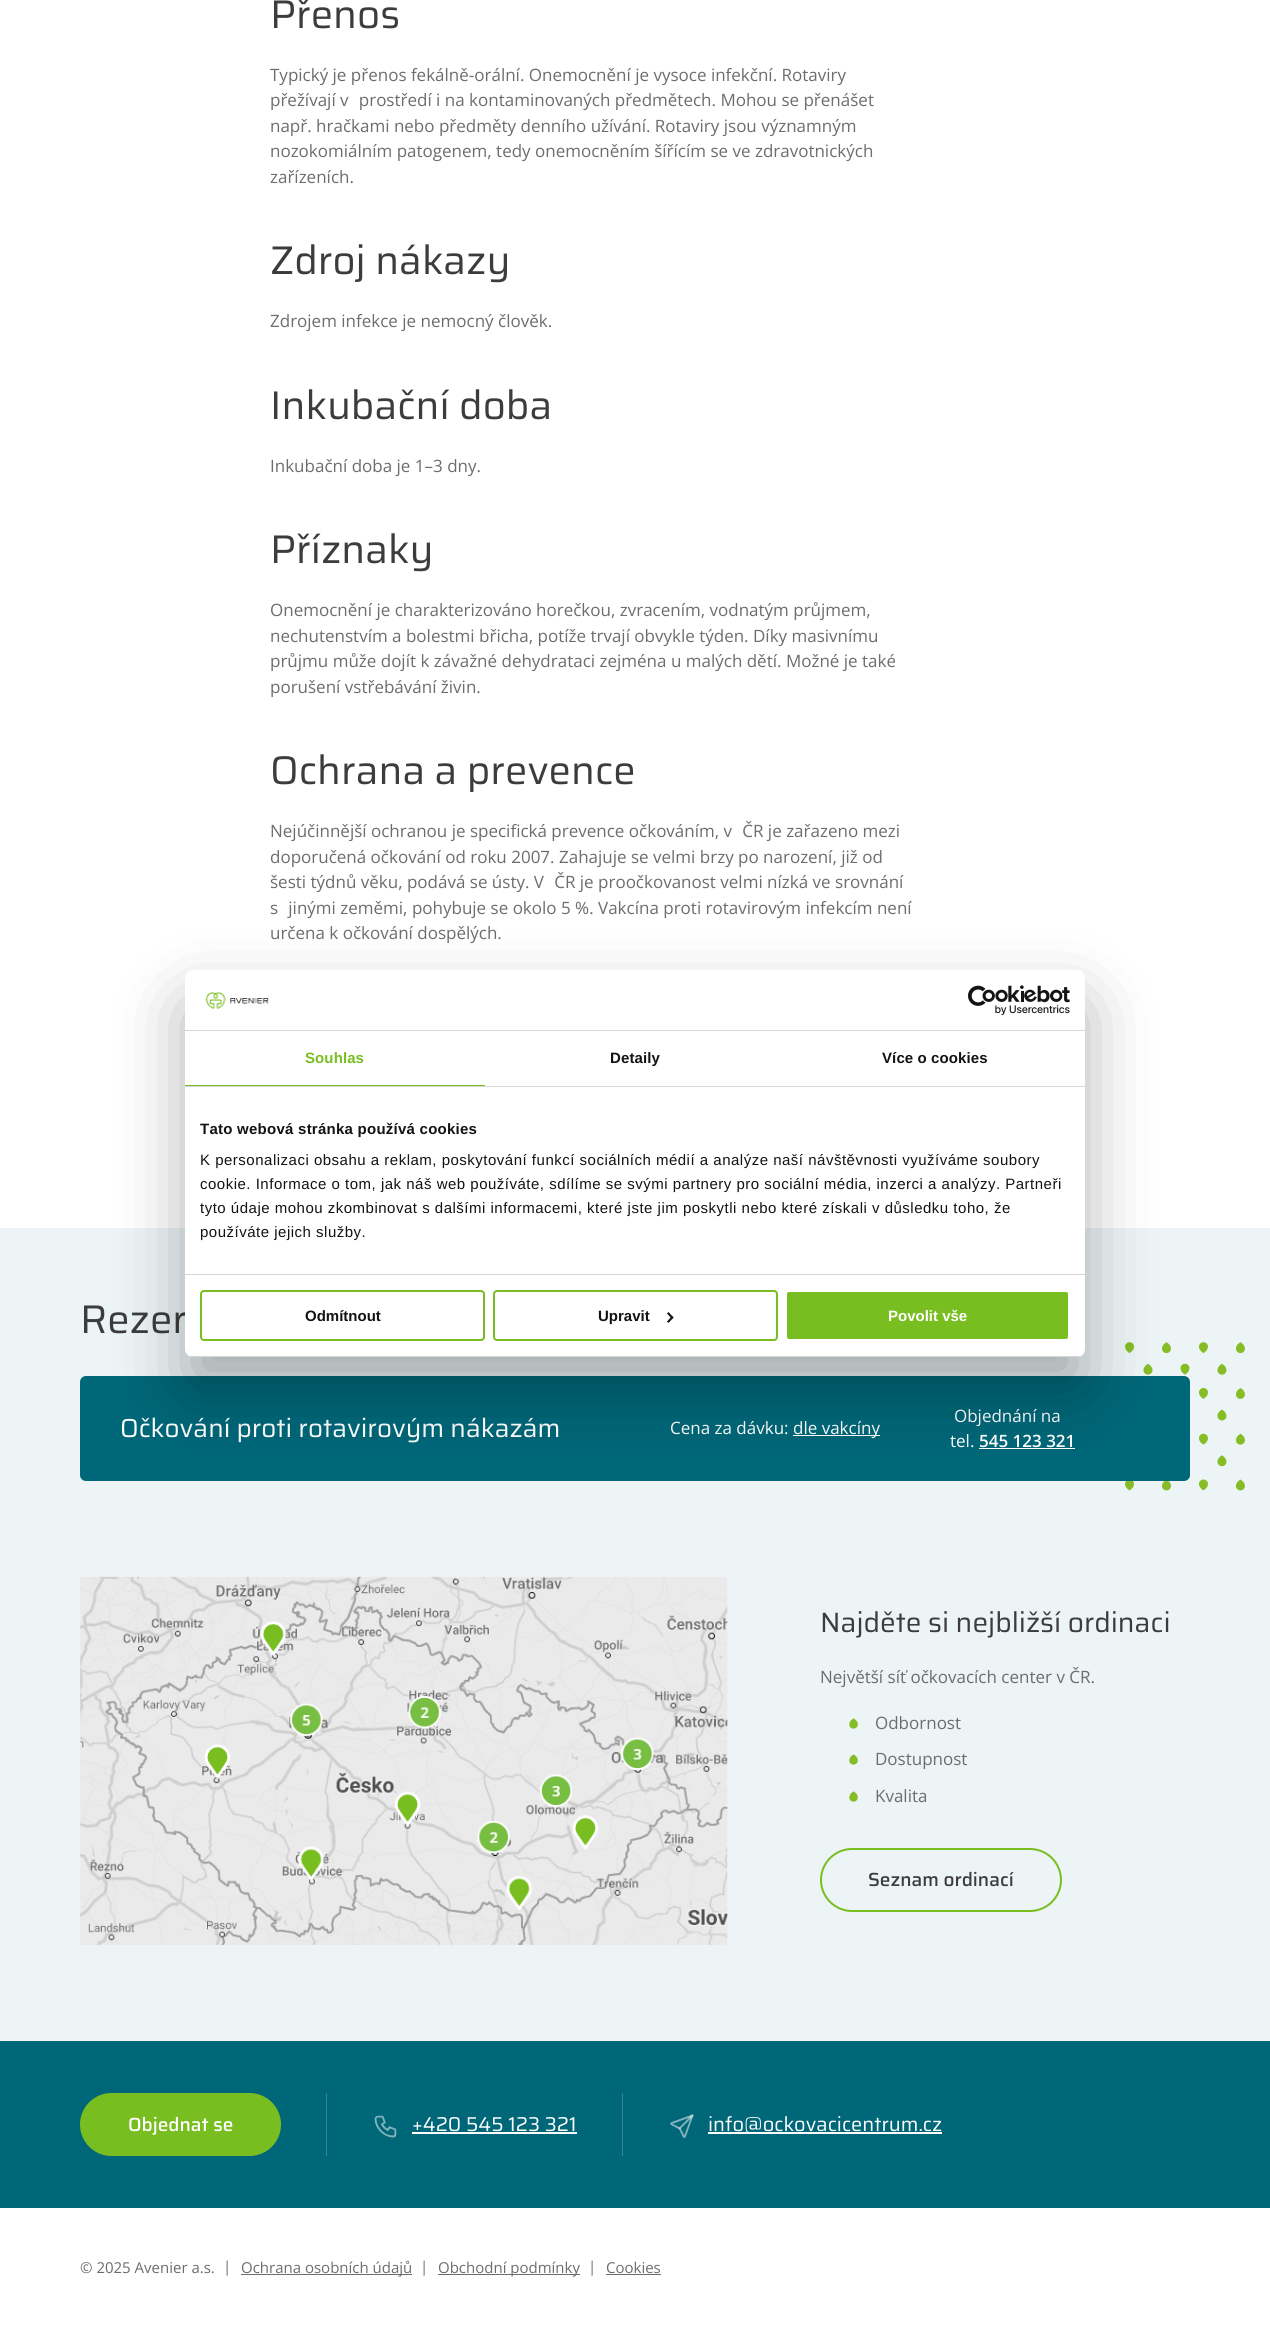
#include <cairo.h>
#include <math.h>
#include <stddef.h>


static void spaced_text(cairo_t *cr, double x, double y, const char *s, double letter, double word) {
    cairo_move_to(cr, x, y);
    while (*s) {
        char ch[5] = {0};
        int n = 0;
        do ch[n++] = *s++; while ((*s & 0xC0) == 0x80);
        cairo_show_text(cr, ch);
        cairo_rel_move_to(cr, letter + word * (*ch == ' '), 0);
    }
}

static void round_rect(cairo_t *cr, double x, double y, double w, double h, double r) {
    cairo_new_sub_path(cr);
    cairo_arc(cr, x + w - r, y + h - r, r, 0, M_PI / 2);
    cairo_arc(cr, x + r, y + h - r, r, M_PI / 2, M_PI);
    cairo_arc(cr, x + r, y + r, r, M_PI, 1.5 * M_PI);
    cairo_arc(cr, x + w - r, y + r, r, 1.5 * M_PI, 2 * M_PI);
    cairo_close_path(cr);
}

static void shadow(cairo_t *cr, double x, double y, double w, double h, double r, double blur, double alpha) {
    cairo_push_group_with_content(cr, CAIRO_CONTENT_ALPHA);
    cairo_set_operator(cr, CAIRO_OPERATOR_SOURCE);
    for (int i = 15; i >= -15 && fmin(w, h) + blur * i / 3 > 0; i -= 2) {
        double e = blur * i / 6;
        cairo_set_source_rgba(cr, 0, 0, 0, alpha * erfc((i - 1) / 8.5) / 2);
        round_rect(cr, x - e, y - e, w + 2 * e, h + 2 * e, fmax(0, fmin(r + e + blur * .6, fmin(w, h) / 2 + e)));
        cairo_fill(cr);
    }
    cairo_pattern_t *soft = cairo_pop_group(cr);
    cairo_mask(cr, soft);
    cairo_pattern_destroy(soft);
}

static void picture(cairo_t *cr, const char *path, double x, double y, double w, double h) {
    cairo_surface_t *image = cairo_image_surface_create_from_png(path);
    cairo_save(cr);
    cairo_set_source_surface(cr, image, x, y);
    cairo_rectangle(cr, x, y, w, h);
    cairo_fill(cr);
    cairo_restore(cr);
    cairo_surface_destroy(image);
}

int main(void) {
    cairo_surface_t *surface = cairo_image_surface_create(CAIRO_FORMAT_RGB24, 1270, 2327);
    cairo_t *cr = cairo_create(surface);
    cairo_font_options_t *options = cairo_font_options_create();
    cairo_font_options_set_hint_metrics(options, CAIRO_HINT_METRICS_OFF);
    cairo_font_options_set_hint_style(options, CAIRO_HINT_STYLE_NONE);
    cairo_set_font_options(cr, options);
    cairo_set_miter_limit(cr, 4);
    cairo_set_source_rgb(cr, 1, 1, 1);
    cairo_paint(cr);
    cairo_select_font_face(cr, "Saira", CAIRO_FONT_SLANT_NORMAL, CAIRO_FONT_WEIGHT_NORMAL);
    cairo_set_font_size(cr, 40);
    cairo_set_source_rgb(cr, 0.235, 0.235, 0.235);
    cairo_move_to(cr, 270, 28);
    cairo_show_text(cr, "Přenos");
    cairo_select_font_face(cr, "Open Sans", CAIRO_FONT_SLANT_NORMAL, CAIRO_FONT_WEIGHT_NORMAL);
    cairo_set_font_size(cr, 17);
    cairo_set_source_rgb(cr, 0.427, 0.427, 0.427);
    cairo_move_to(cr, 270, 81);
    cairo_show_text(cr, "Typický je přenos fekálně-orální. Onemocnění je vysoce infekční. Rotaviry");
    cairo_move_to(cr, 270, 106);
    cairo_show_text(cr, "přežívají v prostředí i na kontaminovaných předmětech. Mohou se přenášet");
    cairo_move_to(cr, 270, 132);
    cairo_show_text(cr, "např. hračkami nebo předměty denního užívání. Rotaviry jsou významným");
    cairo_move_to(cr, 270, 157);
    cairo_show_text(cr, "nozokomiálním patogenem, tedy onemocněním šířícím se ve zdravotnických");
    cairo_move_to(cr, 270, 183);
    cairo_show_text(cr, "zařízeních.");
    cairo_select_font_face(cr, "Saira", CAIRO_FONT_SLANT_NORMAL, CAIRO_FONT_WEIGHT_NORMAL);
    cairo_set_font_size(cr, 40);
    cairo_set_source_rgb(cr, 0.235, 0.235, 0.235);
    cairo_move_to(cr, 270, 274);
    cairo_show_text(cr, "Zdroj nákazy");
    cairo_select_font_face(cr, "Open Sans", CAIRO_FONT_SLANT_NORMAL, CAIRO_FONT_WEIGHT_NORMAL);
    cairo_set_font_size(cr, 17);
    cairo_set_source_rgb(cr, 0.427, 0.427, 0.427);
    cairo_move_to(cr, 270, 327);
    cairo_show_text(cr, "Zdrojem infekce je nemocný člověk.");
    cairo_select_font_face(cr, "Saira", CAIRO_FONT_SLANT_NORMAL, CAIRO_FONT_WEIGHT_NORMAL);
    cairo_set_font_size(cr, 40);
    cairo_set_source_rgb(cr, 0.235, 0.235, 0.235);
    cairo_move_to(cr, 270, 419);
    cairo_show_text(cr, "Inkubační doba");
    cairo_select_font_face(cr, "Open Sans", CAIRO_FONT_SLANT_NORMAL, CAIRO_FONT_WEIGHT_NORMAL);
    cairo_set_font_size(cr, 17);
    cairo_set_source_rgb(cr, 0.427, 0.427, 0.427);
    cairo_move_to(cr, 270, 472);
    cairo_show_text(cr, "Inkubační doba je 1–3 dny.");
    cairo_select_font_face(cr, "Saira", CAIRO_FONT_SLANT_NORMAL, CAIRO_FONT_WEIGHT_NORMAL);
    cairo_set_font_size(cr, 40);
    cairo_set_source_rgb(cr, 0.235, 0.235, 0.235);
    cairo_move_to(cr, 270, 563);
    cairo_show_text(cr, "Příznaky");
    cairo_select_font_face(cr, "Open Sans", CAIRO_FONT_SLANT_NORMAL, CAIRO_FONT_WEIGHT_NORMAL);
    cairo_set_font_size(cr, 17);
    cairo_set_source_rgb(cr, 0.427, 0.427, 0.427);
    cairo_move_to(cr, 270, 616);
    cairo_show_text(cr, "Onemocnění je charakterizováno horečkou, zvracením, vodnatým průjmem,");
    cairo_move_to(cr, 270, 642);
    cairo_show_text(cr, "nechutenstvím a bolestmi břicha, potíže trvají obvykle týden. Díky masivnímu");
    cairo_move_to(cr, 270, 667);
    cairo_show_text(cr, "průjmu může dojít k závažné dehydrataci zejména u malých dětí. Možné je také");
    cairo_move_to(cr, 270, 693);
    cairo_show_text(cr, "porušení vstřebávání živin.");
    cairo_select_font_face(cr, "Saira", CAIRO_FONT_SLANT_NORMAL, CAIRO_FONT_WEIGHT_NORMAL);
    cairo_set_font_size(cr, 40);
    cairo_set_source_rgb(cr, 0.235, 0.235, 0.235);
    cairo_move_to(cr, 270, 784);
    cairo_show_text(cr, "Ochrana a prevence");
    cairo_select_font_face(cr, "Open Sans", CAIRO_FONT_SLANT_NORMAL, CAIRO_FONT_WEIGHT_NORMAL);
    cairo_set_font_size(cr, 17);
    cairo_set_source_rgb(cr, 0.427, 0.427, 0.427);
    cairo_move_to(cr, 270, 837);
    cairo_show_text(cr, "Nejúčinnější ochranou je specifická prevence očkováním, v ČR je zařazeno mezi");
    cairo_move_to(cr, 270, 863);
    cairo_show_text(cr, "doporučená očkování od roku 2007. Zahajuje se velmi brzy po narození, již od");
    cairo_move_to(cr, 270, 888);
    cairo_show_text(cr, "šesti týdnů věku, podává se ústy. V ČR je proočkovanost velmi nízká ve srovnání");
    cairo_move_to(cr, 270, 914);
    cairo_show_text(cr, "s jinými zeměmi, pohybuje se okolo 5 %. Vakcína proti rotavirovým infekcím není");
    cairo_move_to(cr, 270, 939);
    cairo_show_text(cr, "určena k očkování dospělých.");
    cairo_set_source_rgb(cr, 0.925, 0.957, 0.961);
    cairo_rectangle(cr, 0, 1228, 1270, 813);
    cairo_fill(cr);
    cairo_select_font_face(cr, "Saira", CAIRO_FONT_SLANT_NORMAL, CAIRO_FONT_WEIGHT_NORMAL);
    cairo_set_font_size(cr, 40);
    cairo_set_source_rgb(cr, 0.235, 0.235, 0.235);
    cairo_move_to(cr, 80, 1333);
    cairo_show_text(cr, "Rezer");
    picture(cr, "img1.png", 1125, 1342, 120, 149);
    cairo_set_source_rgb(cr, 0, 0.404, 0.471);
    round_rect(cr, 80, 1376, 1110, 105, 6);
    cairo_fill(cr);
    cairo_set_font_size(cr, 26);
    cairo_set_source_rgb(cr, 1, 1, 1);
    cairo_move_to(cr, 120, 1437);
    cairo_show_text(cr, "Očkování proti rotavirovým nákazám");
    cairo_select_font_face(cr, "Open Sans", CAIRO_FONT_SLANT_NORMAL, CAIRO_FONT_WEIGHT_NORMAL);
    cairo_set_font_size(cr, 17);
    cairo_move_to(cr, 670, 1434);
    cairo_show_text(cr, "Cena za dávku:");
    cairo_rectangle(cr, 793, 1435, 87, 1);
    cairo_fill(cr);
    cairo_move_to(cr, 793, 1434);
    cairo_show_text(cr, "dle vakcíny");
    cairo_move_to(cr, 954, 1422);
    cairo_show_text(cr, "Objednání na");
    cairo_move_to(cr, 950, 1447);
    cairo_show_text(cr, "tel.");
    cairo_select_font_face(cr, "Open Sans SemiBold", CAIRO_FONT_SLANT_NORMAL, CAIRO_FONT_WEIGHT_NORMAL);
    cairo_move_to(cr, 979, 1447);
    cairo_show_text(cr, "545 123 321");
    cairo_rectangle(cr, 979, 1448, 96, 1);
    cairo_fill(cr);
    picture(cr, "img2.png", 80, 1576, 648, 369);
    cairo_select_font_face(cr, "Saira", CAIRO_FONT_SLANT_NORMAL, CAIRO_FONT_WEIGHT_NORMAL);
    cairo_set_font_size(cr, 28);
    cairo_set_source_rgb(cr, 0.235, 0.235, 0.235);
    cairo_move_to(cr, 820, 1632);
    cairo_show_text(cr, "Najděte si nejbližší ordinaci");
    cairo_select_font_face(cr, "Open Sans", CAIRO_FONT_SLANT_NORMAL, CAIRO_FONT_WEIGHT_NORMAL);
    cairo_set_font_size(cr, 17);
    cairo_set_source_rgb(cr, 0.427, 0.427, 0.427);
    cairo_move_to(cr, 820, 1683);
    cairo_show_text(cr, "Největší síť očkovacích center v ČR.");
    picture(cr, "img3.png", 849, 1718, 9, 11);
    cairo_move_to(cr, 875, 1729);
    cairo_show_text(cr, "Odbornost");
    picture(cr, "img3.png", 849, 1754, 9, 11);
    cairo_move_to(cr, 875, 1765);
    cairo_show_text(cr, "Dostupnost");
    picture(cr, "img3.png", 849, 1791, 9, 11);
    cairo_move_to(cr, 875, 1802);
    cairo_show_text(cr, "Kvalita");
    round_rect(cr, 821, 1849, 240, 62, 31);
    cairo_set_source_rgb(cr, 0.471, 0.745, 0.125);
    cairo_stroke(cr);
    cairo_select_font_face(cr, "Saira Medium", CAIRO_FONT_SLANT_NORMAL, CAIRO_FONT_WEIGHT_NORMAL);
    cairo_set_font_size(cr, 19);
    cairo_set_source_rgb(cr, 0.235, 0.235, 0.235);
    cairo_move_to(cr, 868, 1886);
    cairo_show_text(cr, "Seznam ordinací");
    cairo_set_source_rgb(cr, 0, 0, 0);
    shadow(cr, 185, 1002, 900, 387, 8, 34, 0.3);
    cairo_set_source_rgb(cr, 1, 1, 1);
    round_rect(cr, 185, 970, 900, 387, 8);
    cairo_fill(cr);
    cairo_set_source_rgb(cr, 0.839, 0.839, 0.839);
    cairo_rectangle(cr, 185, 1030, 900, 1);
    cairo_fill(cr);
    picture(cr, "img4.png", 205, 992, 64, 17);
    picture(cr, "img5.png", 968, 985, 102, 30);
    cairo_rectangle(cr, 185, 1086, 900, 1);
    cairo_fill(cr);
    cairo_set_source_rgb(cr, 0.471, 0.745, 0.125);
    cairo_rectangle(cr, 185, 1085, 300, 1);
    cairo_fill(cr);
    cairo_select_font_face(cr, "Liberation Sans", CAIRO_FONT_SLANT_NORMAL, CAIRO_FONT_WEIGHT_BOLD);
    cairo_set_font_size(cr, 15);
    spaced_text(cr, 305, 1063, "Souhlas", 0.1, 0);
    cairo_set_source_rgb(cr, 0.078, 0.078, 0.078);
    spaced_text(cr, 610, 1063, "Detaily", 0.1, 0);
    spaced_text(cr, 882, 1063, "Více o cookies", 0.1, 0);
    cairo_set_source_rgb(cr, 0.839, 0.839, 0.839);
    cairo_rectangle(cr, 185, 1274, 900, 1);
    cairo_fill(cr);
    cairo_set_source_rgb(cr, 0.078, 0.078, 0.078);
    spaced_text(cr, 200, 1134, "Tato webová stránka používá cookies", 0.25, 0);
    cairo_select_font_face(cr, "Liberation Sans", CAIRO_FONT_SLANT_NORMAL, CAIRO_FONT_WEIGHT_NORMAL);
    spaced_text(cr, 200, 1165, "K personalizaci obsahu a reklam, poskytování funkcí sociálních médií a analýze naší návštěvnosti využíváme soubory", 0.5, 0);
    spaced_text(cr, 200, 1189, "cookie. Informace o tom, jak náš web používáte, sdílíme se svými partnery pro sociální média, inzerci a analýzy. Partneři", 0.5, 0);
    spaced_text(cr, 200, 1213, "tyto údaje mohou zkombinovat s dalšími informacemi, které jste jim poskytli nebo které získali v důsledku toho, že", 0.5, 0);
    spaced_text(cr, 200, 1237, "používáte jejich služby.", 0.5, 0);
    cairo_save(cr);
    round_rect(cr, 185, 970, 900, 387, 8);
    cairo_clip(cr);
    cairo_set_source_rgb(cr, 0.839, 0.839, 0.839);
    cairo_rectangle(cr, 185, 1356, 900, 1);
    cairo_fill(cr);
    cairo_restore(cr);
    round_rect(cr, 201, 1291, 283, 49, 3);
    cairo_set_source_rgb(cr, 0.471, 0.745, 0.125);
    cairo_stroke(cr);
    cairo_select_font_face(cr, "Liberation Sans", CAIRO_FONT_SLANT_NORMAL, CAIRO_FONT_WEIGHT_BOLD);
    cairo_set_source_rgb(cr, 0.078, 0.078, 0.078);
    cairo_move_to(cr, 305, 1321);
    cairo_show_text(cr, "Odmítnout");
    round_rect(cr, 494, 1291, 283, 49, 3);
    cairo_set_source_rgb(cr, 0.471, 0.745, 0.125);
    cairo_stroke(cr);
    cairo_set_source_rgb(cr, 0.078, 0.078, 0.078);
    cairo_move_to(cr, 598, 1321);
    cairo_show_text(cr, "Upravit");
    cairo_new_path(cr);
    cairo_move_to(cr, 668.5, 1312);
    cairo_line_to(cr, 673.5, 1317.5);
    cairo_line_to(cr, 672, 1319);
    cairo_line_to(cr, 667, 1313.5);
    cairo_close_path(cr);
    cairo_fill(cr);
    cairo_new_path(cr);
    cairo_move_to(cr, 672, 1316);
    cairo_line_to(cr, 673.5, 1317.5);
    cairo_line_to(cr, 668.5, 1323);
    cairo_line_to(cr, 667, 1321.5);
    cairo_close_path(cr);
    cairo_fill(cr);
    cairo_set_source_rgb(cr, 0.471, 0.745, 0.125);
    round_rect(cr, 786, 1291, 283, 49, 3);
    cairo_fill_preserve(cr);
    cairo_set_source_rgb(cr, 1, 1, 1);
    cairo_stroke(cr);
    cairo_move_to(cr, 888, 1321);
    cairo_show_text(cr, "Povolit vše");
    cairo_set_source_rgb(cr, 0, 0.404, 0.471);
    cairo_rectangle(cr, 0, 2041, 1270, 167);
    cairo_fill(cr);
    cairo_set_source_rgb(cr, 0.471, 0.745, 0.125);
    round_rect(cr, 81, 2094, 199, 61, 30.5);
    cairo_fill_preserve(cr);
    cairo_stroke(cr);
    cairo_select_font_face(cr, "Saira Medium", CAIRO_FONT_SLANT_NORMAL, CAIRO_FONT_WEIGHT_NORMAL);
    cairo_set_font_size(cr, 19);
    cairo_set_source_rgb(cr, 1, 1, 1);
    cairo_move_to(cr, 128, 2131);
    cairo_show_text(cr, "Objednat se");
    cairo_set_source_rgb(cr, 0.2, 0.522, 0.576);
    cairo_rectangle(cr, 326, 2093, 1, 63);
    cairo_fill(cr);
    picture(cr, "img6.png", 374, 2115, 23, 23);
    cairo_select_font_face(cr, "Saira", CAIRO_FONT_SLANT_NORMAL, CAIRO_FONT_WEIGHT_NORMAL);
    cairo_set_font_size(cr, 20);
    cairo_set_source_rgb(cr, 1, 1, 1);
    cairo_move_to(cr, 412, 2131);
    cairo_show_text(cr, "+420 545 123 321");
    cairo_rectangle(cr, 412, 2132, 165, 2);
    cairo_fill(cr);
    cairo_set_source_rgb(cr, 0.2, 0.522, 0.576);
    cairo_rectangle(cr, 622, 2093, 1, 63);
    cairo_fill(cr);
    picture(cr, "img7.png", 670, 2114, 24, 24);
    cairo_set_source_rgb(cr, 1, 1, 1);
    cairo_rectangle(cr, 708, 2132, 234, 2);
    cairo_fill(cr);
    cairo_move_to(cr, 708, 2131);
    cairo_show_text(cr, "info@ockovacicentrum.cz");
    cairo_select_font_face(cr, "Open Sans", CAIRO_FONT_SLANT_NORMAL, CAIRO_FONT_WEIGHT_NORMAL);
    cairo_set_font_size(cr, 15);
    cairo_set_source_rgb(cr, 0.427, 0.427, 0.427);
    cairo_move_to(cr, 80, 2273);
    cairo_show_text(cr, "© 2025 Avenier a.s.");
    cairo_move_to(cr, 223, 2272);
    cairo_show_text(cr, "|");
    cairo_rectangle(cr, 241, 2274, 171, 1);
    cairo_fill(cr);
    cairo_move_to(cr, 241, 2273);
    cairo_show_text(cr, "Ochrana osobních údajů");
    cairo_move_to(cr, 420, 2272);
    cairo_show_text(cr, "|");
    cairo_rectangle(cr, 438, 2274, 142, 1);
    cairo_fill(cr);
    cairo_move_to(cr, 438, 2273);
    cairo_show_text(cr, "Obchodní podmínky");
    cairo_move_to(cr, 588, 2272);
    cairo_show_text(cr, "|");
    cairo_move_to(cr, 606, 2273);
    cairo_show_text(cr, "Cookies");
    cairo_rectangle(cr, 606, 2274, 55, 1);
    cairo_fill(cr);
    cairo_surface_write_to_png(surface, "page.png");
    cairo_font_options_destroy(options);
    cairo_destroy(cr);
    cairo_surface_destroy(surface);
    return 0;
}
